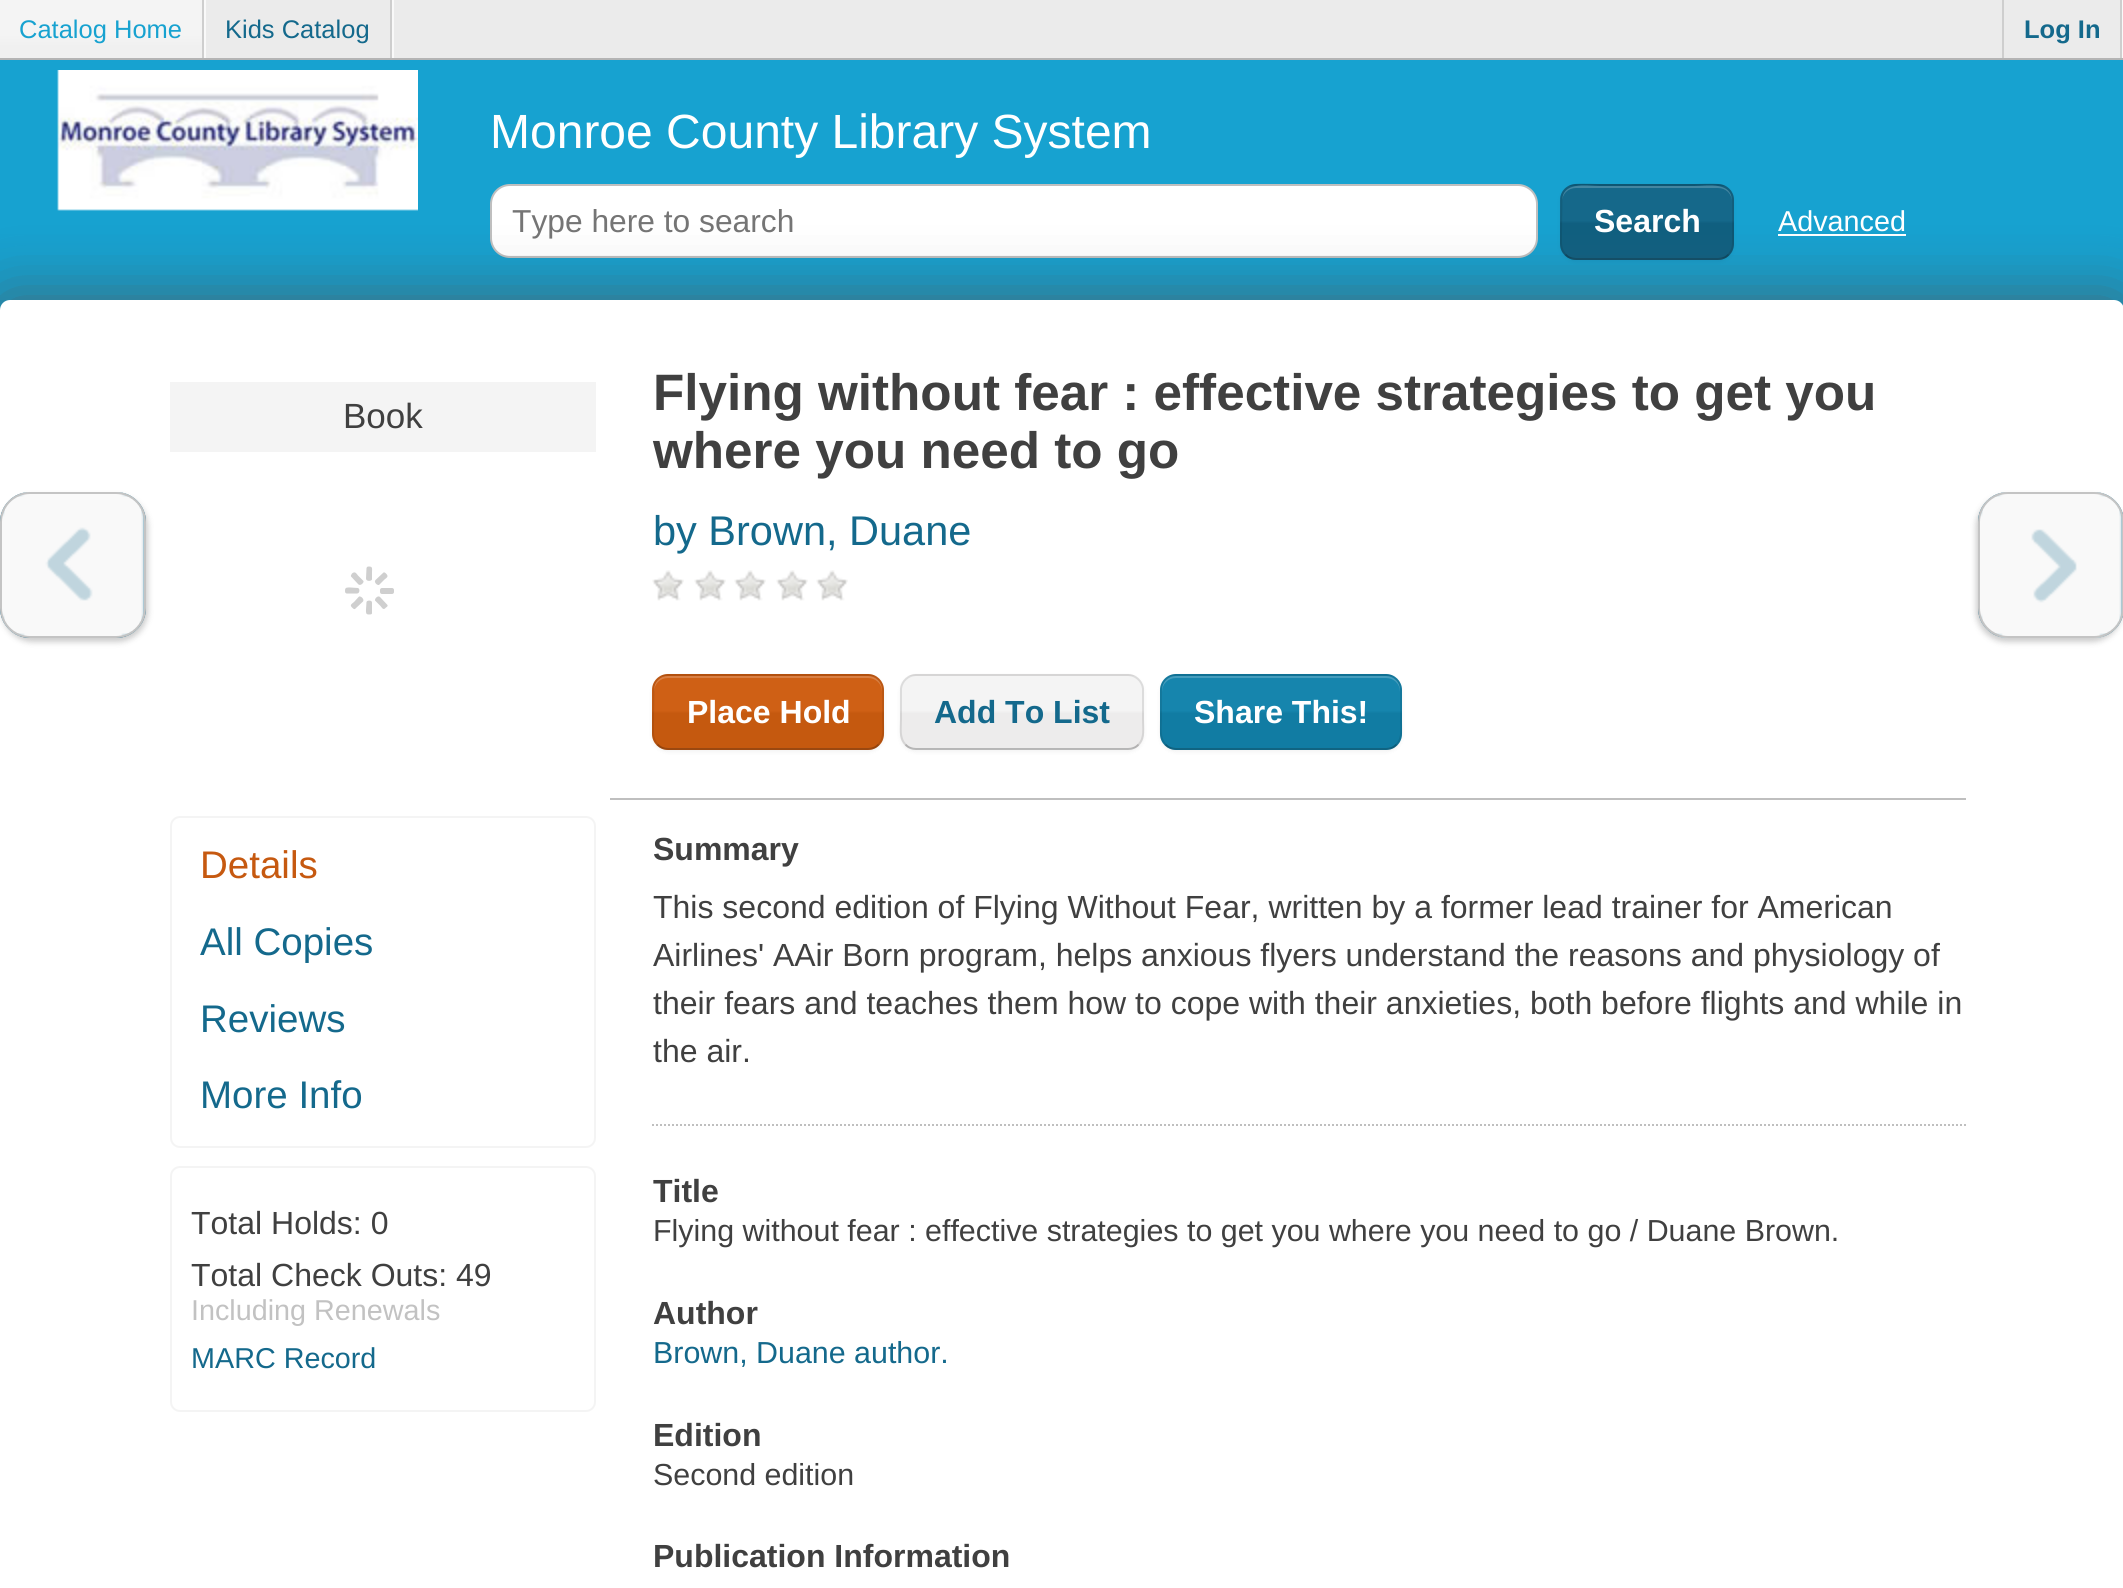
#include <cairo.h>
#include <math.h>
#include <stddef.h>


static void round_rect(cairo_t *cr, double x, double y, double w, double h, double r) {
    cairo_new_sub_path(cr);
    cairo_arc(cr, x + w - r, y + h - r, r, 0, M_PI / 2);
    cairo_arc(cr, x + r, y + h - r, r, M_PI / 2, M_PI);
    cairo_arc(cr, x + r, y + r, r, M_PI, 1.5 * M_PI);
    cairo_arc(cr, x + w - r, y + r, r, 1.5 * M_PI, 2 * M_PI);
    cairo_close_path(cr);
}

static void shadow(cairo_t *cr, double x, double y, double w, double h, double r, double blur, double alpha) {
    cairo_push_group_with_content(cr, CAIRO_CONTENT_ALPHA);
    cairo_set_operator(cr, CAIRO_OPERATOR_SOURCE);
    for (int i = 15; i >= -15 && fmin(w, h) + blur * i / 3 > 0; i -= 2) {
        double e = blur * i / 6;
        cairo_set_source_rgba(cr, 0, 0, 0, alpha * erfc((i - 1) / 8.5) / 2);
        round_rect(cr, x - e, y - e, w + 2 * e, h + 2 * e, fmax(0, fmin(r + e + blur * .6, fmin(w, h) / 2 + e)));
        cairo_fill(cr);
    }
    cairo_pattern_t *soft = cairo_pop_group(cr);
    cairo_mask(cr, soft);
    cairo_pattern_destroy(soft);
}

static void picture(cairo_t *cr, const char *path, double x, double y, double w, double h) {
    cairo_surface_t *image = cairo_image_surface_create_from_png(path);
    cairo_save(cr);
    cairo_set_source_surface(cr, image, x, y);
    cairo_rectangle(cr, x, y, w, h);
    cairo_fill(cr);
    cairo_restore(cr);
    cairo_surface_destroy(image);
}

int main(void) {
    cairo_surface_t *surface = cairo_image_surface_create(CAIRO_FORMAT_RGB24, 2123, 1588);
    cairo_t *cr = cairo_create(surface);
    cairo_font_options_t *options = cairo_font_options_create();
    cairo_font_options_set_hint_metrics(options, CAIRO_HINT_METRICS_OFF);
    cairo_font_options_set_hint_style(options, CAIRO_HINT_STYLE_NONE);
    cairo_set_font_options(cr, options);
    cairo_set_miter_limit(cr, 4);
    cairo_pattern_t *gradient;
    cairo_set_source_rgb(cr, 0.918, 0.918, 0.918);
    cairo_paint(cr);
    cairo_set_source_rgb(cr, 0.973, 0.973, 0.973);
    cairo_rectangle(cr, 204, 0, 2, 58);
    cairo_fill(cr);
    gradient = cairo_pattern_create_linear(101, 0, 101, 58);
    cairo_pattern_add_color_stop_rgba(gradient, 0.6, 0.957, 0.957, 0.957, 1);
    cairo_pattern_add_color_stop_rgba(gradient, 0.8, 0.941, 0.941, 0.941, 1);
    cairo_set_source(cr, gradient);
    cairo_pattern_destroy(gradient);
    cairo_rectangle(cr, 0, 0, 202, 58);
    cairo_fill(cr);
    cairo_set_source_rgb(cr, 0.808, 0.808, 0.808);
    cairo_rectangle(cr, 202, 0, 2, 58);
    cairo_fill(cr);
    cairo_select_font_face(cr, "Liberation Sans", CAIRO_FONT_SLANT_NORMAL, CAIRO_FONT_WEIGHT_NORMAL);
    cairo_set_font_size(cr, 25.5);
    cairo_set_source_rgb(cr, 0.09, 0.635, 0.816);
    cairo_move_to(cr, 19, 38);
    cairo_show_text(cr, "Catalog Home");
    cairo_set_source_rgb(cr, 0.973, 0.973, 0.973);
    cairo_rectangle(cr, 392, 0, 2, 58);
    cairo_fill(cr);
    cairo_set_source_rgb(cr, 0.808, 0.808, 0.808);
    cairo_rectangle(cr, 390, 0, 2, 58);
    cairo_fill(cr);
    cairo_set_source_rgb(cr, 0.082, 0.412, 0.549);
    cairo_move_to(cr, 225, 38);
    cairo_show_text(cr, "Kids Catalog");
    cairo_set_source_rgb(cr, 0.808, 0.808, 0.808);
    cairo_rectangle(cr, 2002, 0, 2, 58);
    cairo_fill(cr);
    cairo_set_source_rgb(cr, 0.973, 0.973, 0.973);
    cairo_rectangle(cr, 2122, 0, 1, 58);
    cairo_fill(cr);
    cairo_set_source_rgb(cr, 0.808, 0.808, 0.808);
    cairo_rectangle(cr, 2120, 0, 2, 58);
    cairo_fill(cr);
    cairo_select_font_face(cr, "Liberation Sans", CAIRO_FONT_SLANT_NORMAL, CAIRO_FONT_WEIGHT_BOLD);
    cairo_set_source_rgb(cr, 0.082, 0.412, 0.549);
    cairo_move_to(cr, 2024, 38);
    cairo_show_text(cr, "Log In");
    gradient = cairo_pattern_create_linear(1062, 60, 1062, 400);
    cairo_pattern_add_color_stop_rgba(gradient, 0.5, 0.09, 0.635, 0.816, 1);
    cairo_pattern_add_color_stop_rgba(gradient, 1, 0.082, 0.561, 0.722, 1);
    cairo_set_source(cr, gradient);
    cairo_pattern_destroy(gradient);
    cairo_rectangle(cr, 0, 60, 2123, 250);
    cairo_fill(cr);
    cairo_set_source_rgb(cr, 0.706, 0.706, 0.706);
    cairo_rectangle(cr, 0, 58, 2123, 2);
    cairo_fill(cr);
    picture(cr, "img1.png", 57, 70, 361, 141);
    cairo_select_font_face(cr, "Liberation Sans", CAIRO_FONT_SLANT_NORMAL, CAIRO_FONT_WEIGHT_NORMAL);
    cairo_set_font_size(cr, 48);
    cairo_set_source_rgb(cr, 1, 1, 1);
    cairo_move_to(cr, 490, 148);
    cairo_show_text(cr, "Monroe County Library System");
    round_rect(cr, 491, 185, 1046, 72, 19);
    cairo_fill_preserve(cr);
    cairo_set_source_rgb(cr, 0.749, 0.749, 0.749);
    cairo_stroke(cr);
    cairo_set_font_size(cr, 31.75);
    cairo_set_source_rgb(cr, 0.459, 0.459, 0.459);
    cairo_move_to(cr, 512, 232);
    cairo_show_text(cr, "Type here to search");
    cairo_set_source_rgb(cr, 0, 0, 0);
    shadow(cr, 1560, 186, 174, 76, 16, 2, 0.05);
    cairo_save(cr);
    round_rect(cr, 1560, 184, 174, 76, 16);
    cairo_clip(cr);
    gradient = cairo_pattern_create_linear(1647, 114, 1647, 186);
    cairo_pattern_add_color_stop_rgba(gradient, 0.48, 0.082, 0.408, 0.541, 1);
    cairo_pattern_add_color_stop_rgba(gradient, 0.52, 0.063, 0.373, 0.502, 1);
    cairo_set_source(cr, gradient);
    cairo_pattern_destroy(gradient);
    cairo_rectangle(cr, 1560, 184, 174, 2);
    cairo_fill(cr);
    gradient = cairo_pattern_create_linear(1647, 186, 1647, 258);
    cairo_pattern_add_color_stop_rgba(gradient, 0.48, 0.082, 0.408, 0.541, 1);
    cairo_pattern_add_color_stop_rgba(gradient, 0.52, 0.063, 0.373, 0.502, 1);
    cairo_set_source(cr, gradient);
    cairo_pattern_destroy(gradient);
    cairo_rectangle(cr, 1560, 186, 174, 72);
    cairo_fill(cr);
    gradient = cairo_pattern_create_linear(1647, 258, 1647, 330);
    cairo_pattern_add_color_stop_rgba(gradient, 0.48, 0.082, 0.408, 0.541, 1);
    cairo_pattern_add_color_stop_rgba(gradient, 0.52, 0.063, 0.373, 0.502, 1);
    cairo_set_source(cr, gradient);
    cairo_pattern_destroy(gradient);
    cairo_rectangle(cr, 1560, 258, 174, 2);
    cairo_fill(cr);
    cairo_restore(cr);
    cairo_set_source_rgb(cr, 0.267, 0.525, 0.631);
    cairo_new_path(cr);
    cairo_move_to(cr, 1576, 188);
    cairo_line_to(cr, 1718, 188);
    cairo_curve_to(cr, 1726, 188, 1732, 194, 1732, 202);
    cairo_curve_to(cr, 1732, 181, 1709, 186, 1694, 186);
    cairo_line_to(cr, 1600, 186);
    cairo_curve_to(cr, 1585, 186, 1562, 181, 1562, 202);
    cairo_curve_to(cr, 1562, 194, 1568, 188, 1576, 188);
    cairo_close_path(cr);
    cairo_fill(cr);
    cairo_new_path(cr);
    cairo_move_to(cr, 1728.5, 254.5);
    cairo_curve_to(cr, 1726, 257.5, 1722, 259, 1718, 259);
    cairo_line_to(cr, 1576, 259);
    cairo_curve_to(cr, 1572, 259, 1568, 257.5, 1565.5, 254.5);
    cairo_set_source_rgba(cr, 0, 0, 0, 0.25);
    cairo_stroke(cr);
    cairo_new_path(cr);
    cairo_move_to(cr, 1565.5, 254.5);
    cairo_curve_to(cr, 1560.5, 249.5, 1561, 243.5, 1561, 236.5);
    cairo_line_to(cr, 1561.5, 197);
    cairo_curve_to(cr, 1564.5, 180, 1588.5, 185, 1599.5, 185);
    cairo_line_to(cr, 1694.5, 185);
    cairo_curve_to(cr, 1706, 185, 1731, 180, 1733, 198.5);
    cairo_line_to(cr, 1733, 236.5);
    cairo_curve_to(cr, 1733, 243.5, 1733.5, 249.5, 1728.5, 254.5);
    cairo_set_source_rgba(cr, 0, 0, 0, 0.1);
    cairo_stroke(cr);
    cairo_select_font_face(cr, "Liberation Sans", CAIRO_FONT_SLANT_NORMAL, CAIRO_FONT_WEIGHT_BOLD);
    cairo_set_font_size(cr, 32);
    cairo_set_source_rgb(cr, 1, 1, 1);
    cairo_move_to(cr, 1594, 232);
    cairo_show_text(cr, "Search");
    cairo_select_font_face(cr, "Liberation Sans", CAIRO_FONT_SLANT_NORMAL, CAIRO_FONT_WEIGHT_NORMAL);
    cairo_set_font_size(cr, 28.75);
    cairo_move_to(cr, 1778, 231);
    cairo_show_text(cr, "Advanced");
    cairo_rectangle(cr, 1778, 234, 128, 2);
    cairo_fill(cr);
    cairo_set_source_rgb(cr, 0.333, 0.333, 0.333);
    shadow(cr, 0, 300, 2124, 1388, 10, 30, 0.7);
    cairo_set_source_rgb(cr, 1, 1, 1);
    round_rect(cr, 0, 300, 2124, 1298, 10);
    cairo_fill(cr);
    cairo_set_source_rgb(cr, 0, 0, 0);
    shadow(cr, 2, 496, 146, 146, 30, 3, 0.2);
    cairo_set_source_rgb(cr, 0.082, 0.412, 0.549);
    round_rect(cr, 0, 492, 146, 146, 30);
    cairo_fill(cr);
    picture(cr, "img2.png", 2, 492, 143, 144);
    round_rect(cr, 1, 493, 144, 144, 29);
    cairo_set_source_rgb(cr, 0.769, 0.769, 0.769);
    cairo_stroke(cr);
    cairo_set_source_rgb(cr, 0.957, 0.957, 0.957);
    cairo_rectangle(cr, 170, 382, 426, 70);
    cairo_fill(cr);
    cairo_set_font_size(cr, 35);
    cairo_set_source_rgb(cr, 0.251, 0.251, 0.251);
    cairo_move_to(cr, 343, 428);
    cairo_show_text(cr, "Book");
    cairo_set_source_rgb(cr, 0.812, 0.812, 0.812);
    round_rect(cr, 380, 588, 14, 6, 2);
    cairo_fill(cr);
    cairo_new_path(cr);
    cairo_move_to(cr, 380, 597);
    cairo_line_to(cr, 387.5, 605);
    cairo_curve_to(cr, 388, 606, 387, 607, 386, 607.5);
    cairo_curve_to(cr, 383.5, 610.5, 382.5, 608.5, 380.5, 606);
    cairo_line_to(cr, 375, 600.5);
    cairo_curve_to(cr, 374.5, 598.5, 378, 595, 380, 597);
    cairo_close_path(cr);
    cairo_move_to(cr, 372, 602.5);
    cairo_line_to(cr, 372, 613.5);
    cairo_curve_to(cr, 371.5, 614.5, 370.5, 614.5, 369, 614.5);
    cairo_curve_to(cr, 365.5, 614.5, 366, 612.5, 366, 609.5);
    cairo_line_to(cr, 366.5, 602);
    cairo_curve_to(cr, 367, 600, 372, 600, 372, 602.5);
    cairo_close_path(cr);
    cairo_move_to(cr, 363, 601.5);
    cairo_line_to(cr, 355, 609);
    cairo_curve_to(cr, 354, 609.5, 353, 608.5, 352, 607.5);
    cairo_curve_to(cr, 349.5, 605, 351.5, 604, 354, 602);
    cairo_line_to(cr, 359, 596.5);
    cairo_curve_to(cr, 361.5, 596, 364.5, 599.5, 363, 601.5);
    cairo_close_path(cr);
    cairo_move_to(cr, 357, 593.5);
    cairo_line_to(cr, 346.5, 593.5);
    cairo_curve_to(cr, 345, 593, 345, 592, 345, 590.5);
    cairo_curve_to(cr, 345, 587, 347.5, 587.5, 350.5, 587.5);
    cairo_line_to(cr, 358, 588);
    cairo_curve_to(cr, 360, 588.5, 360, 593.5, 357, 593.5);
    cairo_close_path(cr);
    cairo_move_to(cr, 358.5, 584.5);
    cairo_line_to(cr, 351, 576.5);
    cairo_curve_to(cr, 350.5, 575.5, 351.5, 574.5, 352, 573.5);
    cairo_curve_to(cr, 355, 571, 356, 573, 358, 575.5);
    cairo_line_to(cr, 363.5, 581);
    cairo_curve_to(cr, 364, 583, 360.5, 586, 358.5, 584.5);
    cairo_close_path(cr);
    cairo_fill(cr);
    cairo_new_path(cr);
    cairo_move_to(cr, 366, 578.5);
    cairo_line_to(cr, 366.5, 568);
    cairo_curve_to(cr, 367, 566.5, 368, 566.5, 369, 566.5);
    cairo_curve_to(cr, 373, 566.5, 372, 569, 372, 572);
    cairo_line_to(cr, 372, 579.5);
    cairo_curve_to(cr, 371, 581.5, 366, 581.5, 366, 578.5);
    cairo_close_path(cr);
    cairo_move_to(cr, 375.5, 580);
    cairo_line_to(cr, 383.5, 572.5);
    cairo_curve_to(cr, 384.5, 572, 385.5, 573, 386, 573.5);
    cairo_curve_to(cr, 389, 576.5, 387, 577.5, 384.5, 579.5);
    cairo_line_to(cr, 379, 585);
    cairo_curve_to(cr, 377, 585.5, 373.5, 582, 375.5, 580);
    cairo_close_path(cr);
    cairo_fill(cr);
    round_rect(cr, 171, 817, 424, 330, 9);
    cairo_set_source_rgb(cr, 0.957, 0.957, 0.957);
    cairo_stroke(cr);
    cairo_set_font_size(cr, 38.5);
    cairo_set_source_rgb(cr, 0.776, 0.349, 0.063);
    cairo_move_to(cr, 200, 878);
    cairo_show_text(cr, "Details");
    cairo_set_source_rgb(cr, 0.082, 0.412, 0.549);
    cairo_move_to(cr, 200, 955);
    cairo_show_text(cr, "All Copies");
    cairo_move_to(cr, 200, 1032);
    cairo_show_text(cr, "Reviews");
    cairo_move_to(cr, 200, 1108);
    cairo_show_text(cr, "More Info");
    round_rect(cr, 171, 1167, 424, 244, 9);
    cairo_set_source_rgb(cr, 0.957, 0.957, 0.957);
    cairo_stroke(cr);
    cairo_set_font_size(cr, 32);
    cairo_set_source_rgb(cr, 0.251, 0.251, 0.251);
    cairo_move_to(cr, 191, 1234);
    cairo_show_text(cr, "Total Holds: 0");
    cairo_move_to(cr, 191, 1286);
    cairo_show_text(cr, "Total Check Outs: 49");
    cairo_set_font_size(cr, 28.75);
    cairo_set_source_rgb(cr, 0.761, 0.761, 0.761);
    cairo_move_to(cr, 191, 1320);
    cairo_show_text(cr, "Including Renewals");
    cairo_set_source_rgb(cr, 0.082, 0.412, 0.549);
    cairo_move_to(cr, 191, 1368);
    cairo_show_text(cr, "MARC Record");
    cairo_set_source_rgb(cr, 0.749, 0.749, 0.749);
    cairo_rectangle(cr, 610, 798, 1356, 2);
    cairo_fill(cr);
    cairo_select_font_face(cr, "Liberation Sans", CAIRO_FONT_SLANT_NORMAL, CAIRO_FONT_WEIGHT_BOLD);
    cairo_set_font_size(cr, 51.2);
    cairo_set_source_rgb(cr, 0.251, 0.251, 0.251);
    cairo_move_to(cr, 653, 410);
    cairo_show_text(cr, "Flying without fear : effective strategies to get you");
    cairo_move_to(cr, 653, 468);
    cairo_show_text(cr, "where you need to go");
    cairo_select_font_face(cr, "Liberation Sans", CAIRO_FONT_SLANT_NORMAL, CAIRO_FONT_WEIGHT_NORMAL);
    cairo_set_font_size(cr, 41.5);
    cairo_set_source_rgb(cr, 0.082, 0.412, 0.549);
    cairo_move_to(cr, 653, 545);
    cairo_show_text(cr, "by Brown, Duane");
    picture(cr, "img3.png", 652, 570, 32, 31);
    picture(cr, "img3.png", 694, 570, 32, 31);
    picture(cr, "img3.png", 734, 570, 32, 31);
    picture(cr, "img3.png", 776, 570, 32, 31);
    picture(cr, "img3.png", 816, 570, 32, 31);
    cairo_set_source_rgb(cr, 0, 0, 0);
    shadow(cr, 652, 676, 232, 76, 16, 2, 0.05);
    cairo_save(cr);
    round_rect(cr, 652, 674, 232, 76, 16);
    cairo_clip(cr);
    gradient = cairo_pattern_create_linear(768, 604, 768, 676);
    cairo_pattern_add_color_stop_rgba(gradient, 0.48, 0.812, 0.376, 0.082, 1);
    cairo_pattern_add_color_stop_rgba(gradient, 0.52, 0.773, 0.349, 0.059, 1);
    cairo_set_source(cr, gradient);
    cairo_pattern_destroy(gradient);
    cairo_rectangle(cr, 652, 674, 232, 2);
    cairo_fill(cr);
    gradient = cairo_pattern_create_linear(768, 676, 768, 748);
    cairo_pattern_add_color_stop_rgba(gradient, 0.48, 0.812, 0.376, 0.082, 1);
    cairo_pattern_add_color_stop_rgba(gradient, 0.52, 0.773, 0.349, 0.059, 1);
    cairo_set_source(cr, gradient);
    cairo_pattern_destroy(gradient);
    cairo_rectangle(cr, 652, 676, 232, 72);
    cairo_fill(cr);
    gradient = cairo_pattern_create_linear(768, 748, 768, 820);
    cairo_pattern_add_color_stop_rgba(gradient, 0.48, 0.812, 0.376, 0.082, 1);
    cairo_pattern_add_color_stop_rgba(gradient, 0.52, 0.773, 0.349, 0.059, 1);
    cairo_set_source(cr, gradient);
    cairo_pattern_destroy(gradient);
    cairo_rectangle(cr, 652, 748, 232, 2);
    cairo_fill(cr);
    cairo_restore(cr);
    cairo_set_source_rgb(cr, 0.851, 0.502, 0.267);
    cairo_new_path(cr);
    cairo_move_to(cr, 668, 678);
    cairo_line_to(cr, 868, 678);
    cairo_curve_to(cr, 876, 678, 882, 684, 882, 692);
    cairo_line_to(cr, 882, 690);
    cairo_curve_to(cr, 882, 682, 876, 676, 868, 676);
    cairo_line_to(cr, 668, 676);
    cairo_curve_to(cr, 660, 676, 654, 682, 654, 690);
    cairo_line_to(cr, 654, 692);
    cairo_curve_to(cr, 654, 684, 660, 678, 668, 678);
    cairo_close_path(cr);
    cairo_fill(cr);
    cairo_new_path(cr);
    cairo_move_to(cr, 878.5, 744.5);
    cairo_curve_to(cr, 876, 747.5, 872, 749, 868, 749);
    cairo_line_to(cr, 668, 749);
    cairo_curve_to(cr, 664, 749, 660, 747.5, 657.5, 744.5);
    cairo_set_source_rgba(cr, 0, 0, 0, 0.25);
    cairo_stroke(cr);
    cairo_new_path(cr);
    cairo_move_to(cr, 657.5, 744.5);
    cairo_curve_to(cr, 652.5, 739.5, 653, 733.5, 653, 726.5);
    cairo_line_to(cr, 653.5, 687);
    cairo_curve_to(cr, 654.5, 680, 661, 675, 668, 675);
    cairo_line_to(cr, 868, 675);
    cairo_curve_to(cr, 875.5, 675, 882, 681, 883, 688.5);
    cairo_line_to(cr, 883, 719.5);
    cairo_curve_to(cr, 883, 727.5, 885, 738, 878.5, 744.5);
    cairo_set_source_rgba(cr, 0, 0, 0, 0.1);
    cairo_stroke(cr);
    cairo_select_font_face(cr, "Liberation Sans", CAIRO_FONT_SLANT_NORMAL, CAIRO_FONT_WEIGHT_BOLD);
    cairo_set_font_size(cr, 32);
    cairo_set_source_rgb(cr, 1, 1, 1);
    cairo_move_to(cr, 687, 723);
    cairo_show_text(cr, "Place Hold");
    cairo_set_source_rgb(cr, 0, 0, 0);
    shadow(cr, 900, 676, 244, 76, 16, 2, 0.05);
    cairo_save(cr);
    round_rect(cr, 900, 674, 244, 76, 16);
    cairo_clip(cr);
    gradient = cairo_pattern_create_linear(1022, 604, 1022, 676);
    cairo_pattern_add_color_stop_rgba(gradient, 0.48, 0.957, 0.957, 0.957, 1);
    cairo_pattern_add_color_stop_rgba(gradient, 0.52, 0.929, 0.925, 0.925, 1);
    cairo_set_source(cr, gradient);
    cairo_pattern_destroy(gradient);
    cairo_rectangle(cr, 900, 674, 244, 2);
    cairo_fill(cr);
    gradient = cairo_pattern_create_linear(1022, 676, 1022, 748);
    cairo_pattern_add_color_stop_rgba(gradient, 0.48, 0.957, 0.957, 0.957, 1);
    cairo_pattern_add_color_stop_rgba(gradient, 0.52, 0.929, 0.925, 0.925, 1);
    cairo_set_source(cr, gradient);
    cairo_pattern_destroy(gradient);
    cairo_rectangle(cr, 900, 676, 244, 72);
    cairo_fill(cr);
    cairo_restore(cr);
    cairo_new_path(cr);
    cairo_move_to(cr, 1138.5, 744.5);
    cairo_curve_to(cr, 1136, 747.5, 1132, 749, 1128, 749);
    cairo_line_to(cr, 916, 749);
    cairo_curve_to(cr, 912, 749, 908, 747.5, 905.5, 744.5);
    cairo_set_source_rgba(cr, 0, 0, 0, 0.25);
    cairo_stroke(cr);
    cairo_new_path(cr);
    cairo_move_to(cr, 905.5, 744.5);
    cairo_curve_to(cr, 899, 738, 901, 727.5, 901, 719.5);
    cairo_line_to(cr, 901, 688.5);
    cairo_curve_to(cr, 902, 681, 908.5, 675, 916, 675);
    cairo_line_to(cr, 1128, 675);
    cairo_curve_to(cr, 1135.5, 675, 1142, 681, 1143, 688.5);
    cairo_line_to(cr, 1143, 719.5);
    cairo_curve_to(cr, 1143, 727.5, 1145, 738, 1138.5, 744.5);
    cairo_set_source_rgba(cr, 0, 0, 0, 0.1);
    cairo_stroke(cr);
    cairo_set_source_rgb(cr, 0.082, 0.412, 0.549);
    cairo_move_to(cr, 934, 723);
    cairo_show_text(cr, "Add To List");
    cairo_set_source_rgb(cr, 0, 0, 0);
    shadow(cr, 1160, 676, 242, 76, 16, 2, 0.05);
    cairo_save(cr);
    round_rect(cr, 1160, 674, 242, 76, 16);
    cairo_clip(cr);
    gradient = cairo_pattern_create_linear(1281, 604, 1281, 676);
    cairo_pattern_add_color_stop_rgba(gradient, 0.48, 0.086, 0.522, 0.678, 1);
    cairo_pattern_add_color_stop_rgba(gradient, 0.52, 0.067, 0.486, 0.639, 1);
    cairo_set_source(cr, gradient);
    cairo_pattern_destroy(gradient);
    cairo_rectangle(cr, 1160, 674, 242, 2);
    cairo_fill(cr);
    gradient = cairo_pattern_create_linear(1281, 676, 1281, 748);
    cairo_pattern_add_color_stop_rgba(gradient, 0.48, 0.086, 0.522, 0.678, 1);
    cairo_pattern_add_color_stop_rgba(gradient, 0.52, 0.067, 0.486, 0.639, 1);
    cairo_set_source(cr, gradient);
    cairo_pattern_destroy(gradient);
    cairo_rectangle(cr, 1160, 676, 242, 72);
    cairo_fill(cr);
    gradient = cairo_pattern_create_linear(1281, 748, 1281, 820);
    cairo_pattern_add_color_stop_rgba(gradient, 0.48, 0.086, 0.522, 0.678, 1);
    cairo_pattern_add_color_stop_rgba(gradient, 0.52, 0.067, 0.486, 0.639, 1);
    cairo_set_source(cr, gradient);
    cairo_pattern_destroy(gradient);
    cairo_rectangle(cr, 1160, 748, 242, 2);
    cairo_fill(cr);
    cairo_restore(cr);
    cairo_set_source_rgb(cr, 0.271, 0.616, 0.741);
    cairo_new_path(cr);
    cairo_move_to(cr, 1176, 678);
    cairo_line_to(cr, 1386, 678);
    cairo_curve_to(cr, 1394, 678, 1400, 684, 1400, 692);
    cairo_line_to(cr, 1400, 690);
    cairo_curve_to(cr, 1400, 682, 1394, 676, 1386, 676);
    cairo_line_to(cr, 1176, 676);
    cairo_curve_to(cr, 1168, 676, 1162, 682, 1162, 690);
    cairo_line_to(cr, 1162, 692);
    cairo_curve_to(cr, 1162, 684, 1168, 678, 1176, 678);
    cairo_close_path(cr);
    cairo_fill(cr);
    cairo_new_path(cr);
    cairo_move_to(cr, 1396.5, 744.5);
    cairo_curve_to(cr, 1394, 747.5, 1390, 749, 1386, 749);
    cairo_line_to(cr, 1176, 749);
    cairo_curve_to(cr, 1172, 749, 1168, 747.5, 1165.5, 744.5);
    cairo_set_source_rgba(cr, 0, 0, 0, 0.25);
    cairo_stroke(cr);
    cairo_new_path(cr);
    cairo_move_to(cr, 1165.5, 744.5);
    cairo_curve_to(cr, 1159, 738, 1161, 727.5, 1161, 719.5);
    cairo_line_to(cr, 1161, 688.5);
    cairo_curve_to(cr, 1162, 681, 1168.5, 675, 1176, 675);
    cairo_line_to(cr, 1386, 675);
    cairo_curve_to(cr, 1393.5, 675, 1400, 681, 1401, 688.5);
    cairo_line_to(cr, 1401, 719.5);
    cairo_curve_to(cr, 1401, 727.5, 1403, 738, 1396.5, 744.5);
    cairo_set_source_rgba(cr, 0, 0, 0, 0.1);
    cairo_stroke(cr);
    cairo_set_source_rgb(cr, 1, 1, 1);
    cairo_move_to(cr, 1194, 723);
    cairo_show_text(cr, "Share This!");
    cairo_set_source_rgb(cr, 0.251, 0.251, 0.251);
    cairo_move_to(cr, 653, 860);
    cairo_show_text(cr, "Summary");
    cairo_new_path(cr);
    cairo_move_to(cr, 652, 1125);
    cairo_line_to(cr, 1966, 1125);
    cairo_set_source_rgb(cr, 0.749, 0.749, 0.749);
    cairo_set_dash(cr, (double[]){2, 2}, 2, 0);
    cairo_stroke(cr);
    cairo_select_font_face(cr, "Liberation Sans", CAIRO_FONT_SLANT_NORMAL, CAIRO_FONT_WEIGHT_NORMAL);
    cairo_set_source_rgb(cr, 0.251, 0.251, 0.251);
    cairo_move_to(cr, 653, 918);
    cairo_show_text(cr, "This second edition of Flying Without Fear, written by a former lead trainer for American");
    cairo_move_to(cr, 653, 966);
    cairo_show_text(cr, "Airlines' AAir Born program, helps anxious flyers understand the reasons and physiology of");
    cairo_move_to(cr, 653, 1014);
    cairo_show_text(cr, "their fears and teaches them how to cope with their anxieties, both before flights and while in");
    cairo_move_to(cr, 653, 1062);
    cairo_show_text(cr, "the air.");
    cairo_select_font_face(cr, "Liberation Sans", CAIRO_FONT_SLANT_NORMAL, CAIRO_FONT_WEIGHT_BOLD);
    cairo_move_to(cr, 653, 1202);
    cairo_show_text(cr, "Title");
    cairo_select_font_face(cr, "Liberation Sans", CAIRO_FONT_SLANT_NORMAL, CAIRO_FONT_WEIGHT_NORMAL);
    cairo_set_font_size(cr, 30.4);
    cairo_move_to(cr, 653, 1241);
    cairo_show_text(cr, "Flying without fear : effective strategies to get you where you need to go / Duane Brown.");
    cairo_select_font_face(cr, "Liberation Sans", CAIRO_FONT_SLANT_NORMAL, CAIRO_FONT_WEIGHT_BOLD);
    cairo_set_font_size(cr, 32);
    cairo_move_to(cr, 653, 1324);
    cairo_show_text(cr, "Author");
    cairo_select_font_face(cr, "Liberation Sans", CAIRO_FONT_SLANT_NORMAL, CAIRO_FONT_WEIGHT_NORMAL);
    cairo_set_font_size(cr, 30.4);
    cairo_set_source_rgb(cr, 0.082, 0.412, 0.549);
    cairo_move_to(cr, 653, 1363);
    cairo_show_text(cr, "Brown, Duane author.");
    cairo_select_font_face(cr, "Liberation Sans", CAIRO_FONT_SLANT_NORMAL, CAIRO_FONT_WEIGHT_BOLD);
    cairo_set_font_size(cr, 32);
    cairo_set_source_rgb(cr, 0.251, 0.251, 0.251);
    cairo_move_to(cr, 653, 1446);
    cairo_show_text(cr, "Edition");
    cairo_select_font_face(cr, "Liberation Sans", CAIRO_FONT_SLANT_NORMAL, CAIRO_FONT_WEIGHT_NORMAL);
    cairo_set_font_size(cr, 30.4);
    cairo_move_to(cr, 653, 1485);
    cairo_show_text(cr, "Second edition");
    cairo_select_font_face(cr, "Liberation Sans", CAIRO_FONT_SLANT_NORMAL, CAIRO_FONT_WEIGHT_BOLD);
    cairo_set_font_size(cr, 32);
    cairo_move_to(cr, 653, 1567);
    cairo_show_text(cr, "Publication Information");
    cairo_set_source_rgb(cr, 0, 0, 0);
    shadow(cr, 1976, 496, 146, 146, 30, 3, 0.2);
    cairo_set_source_rgb(cr, 0.082, 0.412, 0.549);
    round_rect(cr, 1978, 492, 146, 146, 30);
    cairo_fill(cr);
    picture(cr, "img4.png", 1980, 492, 143, 146);
    round_rect(cr, 1979, 493, 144, 144, 29);
    cairo_set_source_rgb(cr, 0.769, 0.769, 0.769);
    cairo_set_dash(cr, NULL, 0, 0);
    cairo_stroke(cr);
    cairo_surface_write_to_png(surface, "page.png");
    cairo_font_options_destroy(options);
    cairo_destroy(cr);
    cairo_surface_destroy(surface);
    return 0;
}
